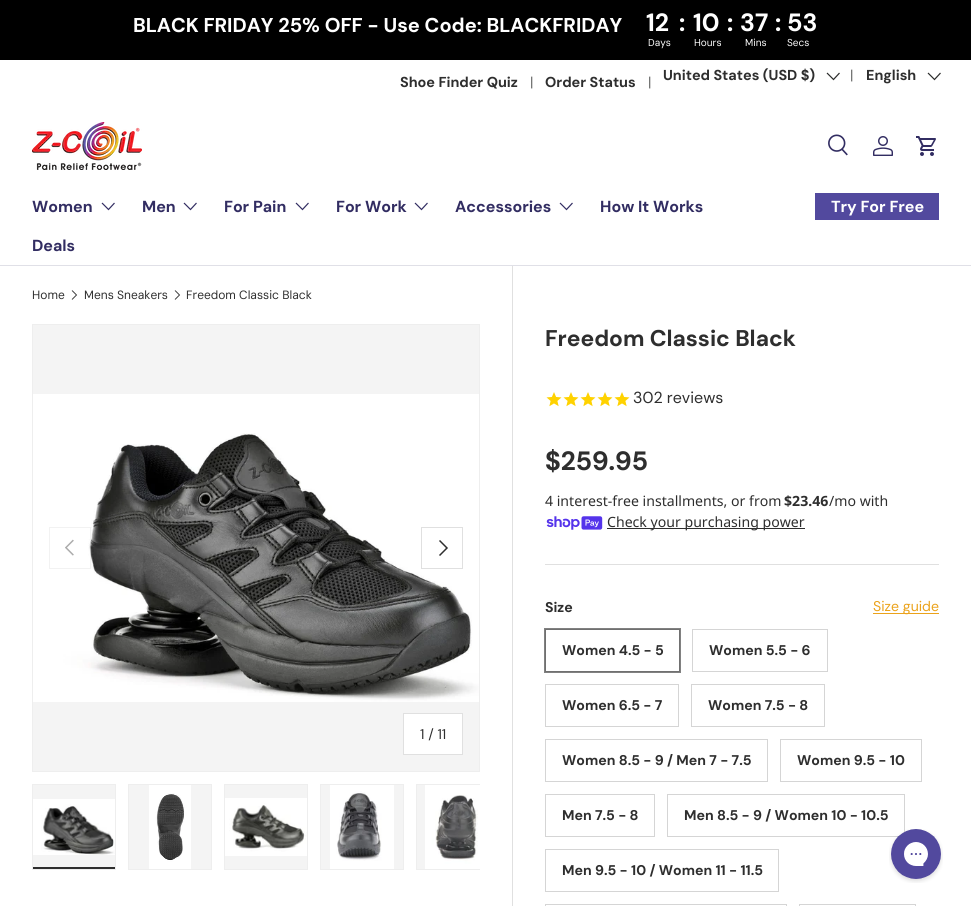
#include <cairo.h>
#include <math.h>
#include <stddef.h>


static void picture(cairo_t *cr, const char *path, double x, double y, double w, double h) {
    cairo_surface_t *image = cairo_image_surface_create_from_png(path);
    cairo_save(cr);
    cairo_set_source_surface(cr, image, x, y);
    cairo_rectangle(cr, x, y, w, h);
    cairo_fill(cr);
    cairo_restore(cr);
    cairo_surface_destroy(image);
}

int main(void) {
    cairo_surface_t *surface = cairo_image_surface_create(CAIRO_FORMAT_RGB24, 971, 906);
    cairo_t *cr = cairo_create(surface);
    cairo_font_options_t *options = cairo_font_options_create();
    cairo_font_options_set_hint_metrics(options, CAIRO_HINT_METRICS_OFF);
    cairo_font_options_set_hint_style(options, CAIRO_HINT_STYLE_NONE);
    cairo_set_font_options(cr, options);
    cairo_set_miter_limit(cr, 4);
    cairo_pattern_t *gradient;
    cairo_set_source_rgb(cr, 1, 1, 1);
    cairo_paint(cr);
    cairo_set_source_rgb(cr, 0, 0, 0);
    cairo_rectangle(cr, 0, 0, 971, 60);
    cairo_fill(cr);
    cairo_select_font_face(cr, "DM Sans", CAIRO_FONT_SLANT_NORMAL, CAIRO_FONT_WEIGHT_BOLD);
    cairo_set_font_size(cr, 20);
    cairo_set_source_rgb(cr, 1, 1, 1);
    cairo_move_to(cr, 133, 32);
    cairo_show_text(cr, "BLACK FRIDAY 25% OFF - Use Code: BLACKFRIDAY");
    cairo_select_font_face(cr, "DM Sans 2", CAIRO_FONT_SLANT_NORMAL, CAIRO_FONT_WEIGHT_BOLD);
    cairo_set_font_size(cr, 25);
    cairo_move_to(cr, 646, 31);
    cairo_show_text(cr, "12");
    cairo_move_to(cr, 679, 31);
    cairo_show_text(cr, ":");
    cairo_move_to(cr, 693, 31);
    cairo_show_text(cr, "10");
    cairo_move_to(cr, 727, 31);
    cairo_show_text(cr, ":");
    cairo_move_to(cr, 740, 31);
    cairo_show_text(cr, "37");
    cairo_move_to(cr, 775, 31);
    cairo_show_text(cr, ": 53");
    cairo_select_font_face(cr, "DM Sans", CAIRO_FONT_SLANT_NORMAL, CAIRO_FONT_WEIGHT_NORMAL);
    cairo_set_font_size(cr, 10);
    cairo_move_to(cr, 648, 46);
    cairo_show_text(cr, "Days");
    cairo_move_to(cr, 694, 46);
    cairo_show_text(cr, "Hours");
    cairo_move_to(cr, 745, 46);
    cairo_show_text(cr, "Mins");
    cairo_move_to(cr, 787, 46);
    cairo_show_text(cr, "Secs");
    cairo_select_font_face(cr, "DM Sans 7", CAIRO_FONT_SLANT_NORMAL, CAIRO_FONT_WEIGHT_BOLD);
    cairo_set_font_size(cr, 14.4);
    cairo_set_source_rgb(cr, 0.18, 0.18, 0.18);
    cairo_move_to(cr, 400, 87);
    cairo_show_text(cr, "Shoe Finder Quiz");
    cairo_select_font_face(cr, "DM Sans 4", CAIRO_FONT_SLANT_NORMAL, CAIRO_FONT_WEIGHT_NORMAL);
    cairo_set_source_rgb(cr, 0.416, 0.42, 0.416);
    cairo_move_to(cr, 530, 87);
    cairo_show_text(cr, "|");
    cairo_select_font_face(cr, "DM Sans 7", CAIRO_FONT_SLANT_NORMAL, CAIRO_FONT_WEIGHT_BOLD);
    cairo_set_source_rgb(cr, 0.18, 0.18, 0.18);
    cairo_move_to(cr, 545, 87);
    cairo_show_text(cr, "Order Status");
    cairo_select_font_face(cr, "DM Sans 4", CAIRO_FONT_SLANT_NORMAL, CAIRO_FONT_WEIGHT_NORMAL);
    cairo_set_source_rgb(cr, 0.416, 0.42, 0.416);
    cairo_move_to(cr, 648, 87);
    cairo_show_text(cr, "|");
    cairo_select_font_face(cr, "DM Sans 7", CAIRO_FONT_SLANT_NORMAL, CAIRO_FONT_WEIGHT_BOLD);
    cairo_set_source_rgb(cr, 0.18, 0.18, 0.18);
    cairo_move_to(cr, 663, 80);
    cairo_show_text(cr, "United States (USD $)");
    cairo_new_path(cr);
    cairo_move_to(cr, 839.5, 73);
    cairo_line_to(cr, 833.5, 79.5);
    cairo_line_to(cr, 827, 73);
    cairo_set_source_rgb(cr, 0.165, 0.169, 0.165);
    cairo_set_line_width(cr, 1.2);
    cairo_stroke(cr);
    cairo_select_font_face(cr, "DM Sans 4", CAIRO_FONT_SLANT_NORMAL, CAIRO_FONT_WEIGHT_NORMAL);
    cairo_set_source_rgb(cr, 0.416, 0.42, 0.416);
    cairo_move_to(cr, 850, 80);
    cairo_show_text(cr, "|");
    cairo_select_font_face(cr, "DM Sans 7", CAIRO_FONT_SLANT_NORMAL, CAIRO_FONT_WEIGHT_BOLD);
    cairo_set_source_rgb(cr, 0.18, 0.18, 0.18);
    cairo_move_to(cr, 866, 80);
    cairo_show_text(cr, "English");
    cairo_new_path(cr);
    cairo_move_to(cr, 940.5, 73);
    cairo_line_to(cr, 934.5, 79.5);
    cairo_line_to(cr, 928, 73);
    cairo_set_source_rgb(cr, 0.165, 0.169, 0.165);
    cairo_stroke(cr);
    cairo_set_source_rgb(cr, 0.878, 0.878, 0.906);
    cairo_rectangle(cr, 0, 265, 971, 1);
    cairo_fill(cr);
    picture(cr, "img1.png", 32, 122, 110, 48);
    picture(cr, "img2.png", 828, 134, 20, 22);
    picture(cr, "img3.png", 873, 136, 20, 20);
    picture(cr, "img4.png", 916, 136, 20, 20);
    cairo_select_font_face(cr, "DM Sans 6", CAIRO_FONT_SLANT_NORMAL, CAIRO_FONT_WEIGHT_BOLD);
    cairo_set_font_size(cr, 16);
    cairo_set_source_rgb(cr, 0.196, 0.176, 0.384);
    cairo_move_to(cr, 32, 212);
    cairo_show_text(cr, "Women");
    cairo_new_path(cr);
    cairo_move_to(cr, 114.5, 203);
    cairo_line_to(cr, 108.5, 209.5);
    cairo_line_to(cr, 102, 203);
    cairo_stroke(cr);
    cairo_move_to(cr, 142, 212);
    cairo_show_text(cr, "Men");
    cairo_new_path(cr);
    cairo_move_to(cr, 196.5, 203);
    cairo_line_to(cr, 190.5, 209.5);
    cairo_line_to(cr, 184, 203);
    cairo_stroke(cr);
    cairo_move_to(cr, 224, 212);
    cairo_show_text(cr, "For Pain");
    cairo_new_path(cr);
    cairo_move_to(cr, 308.5, 203);
    cairo_line_to(cr, 302.5, 209.5);
    cairo_line_to(cr, 296, 203);
    cairo_stroke(cr);
    cairo_move_to(cr, 336, 212);
    cairo_show_text(cr, "For Work");
    cairo_new_path(cr);
    cairo_move_to(cr, 427.5, 203);
    cairo_line_to(cr, 421.5, 209.5);
    cairo_line_to(cr, 415, 203);
    cairo_stroke(cr);
    cairo_move_to(cr, 455, 212);
    cairo_show_text(cr, "Accessories");
    cairo_new_path(cr);
    cairo_move_to(cr, 572.5, 203);
    cairo_line_to(cr, 566.5, 209.5);
    cairo_line_to(cr, 560, 203);
    cairo_stroke(cr);
    cairo_move_to(cr, 600, 212);
    cairo_show_text(cr, "How It Works");
    cairo_move_to(cr, 32, 251);
    cairo_show_text(cr, "Deals");
    gradient = cairo_pattern_create_linear(580, 163, 930, 250);
    cairo_pattern_add_color_stop_rgba(gradient, 0.6, 0.459, 0.431, 0.698, 1);
    cairo_pattern_add_color_stop_rgba(gradient, 0.6, 0.322, 0.286, 0.62, 1);
    cairo_pattern_add_color_stop_rgba(gradient, 1, 0.322, 0.286, 0.62, 1);
    cairo_set_source(cr, gradient);
    cairo_pattern_destroy(gradient);
    cairo_rectangle(cr, 816, 194, 122, 25);
    cairo_fill(cr);
    cairo_rectangle(cr, 815.5, 193.5, 123, 26);
    cairo_set_source_rgb(cr, 0.322, 0.286, 0.62);
    cairo_set_line_width(cr, 1);
    cairo_stroke(cr);
    cairo_set_source_rgb(cr, 1, 1, 1);
    cairo_move_to(cr, 831, 212);
    cairo_show_text(cr, "Try For Free");
    cairo_select_font_face(cr, "DM Sans", CAIRO_FONT_SLANT_NORMAL, CAIRO_FONT_WEIGHT_NORMAL);
    cairo_set_font_size(cr, 12);
    cairo_set_source_rgb(cr, 0.18, 0.18, 0.18);
    cairo_move_to(cr, 32, 299);
    cairo_show_text(cr, "Home");
    cairo_new_path(cr);
    cairo_move_to(cr, 72, 290.5);
    cairo_line_to(cr, 76.5, 295);
    cairo_line_to(cr, 72, 299.5);
    cairo_set_line_width(cr, 0.9);
    cairo_stroke(cr);
    cairo_move_to(cr, 84, 299);
    cairo_show_text(cr, "Mens Sneakers");
    cairo_new_path(cr);
    cairo_move_to(cr, 175, 290.5);
    cairo_line_to(cr, 179.5, 295);
    cairo_line_to(cr, 175, 299.5);
    cairo_stroke(cr);
    cairo_move_to(cr, 186, 299);
    cairo_show_text(cr, "Freedom Classic Black");
    cairo_set_source_rgb(cr, 0.957, 0.957, 0.957);
    cairo_rectangle(cr, 32.5, 324.5, 447, 447);
    cairo_fill_preserve(cr);
    cairo_set_source_rgb(cr, 0.933, 0.933, 0.933);
    cairo_set_line_width(cr, 1);
    cairo_stroke(cr);
    picture(cr, "img5.png", 33, 394, 446, 308);
    cairo_set_source_rgba(cr, 1, 1, 1, 0.4);
    cairo_rectangle(cr, 88, 540, 3, 16);
    cairo_fill(cr);
    cairo_rectangle(cr, 49.5, 527.5, 41, 41);
    cairo_set_source_rgba(cr, 0.18, 0.18, 0.18, 0.06);
    cairo_stroke(cr);
    picture(cr, "img6.png", 65, 539, 9, 17);
    cairo_rectangle(cr, 421.5, 527.5, 41, 41);
    cairo_set_source_rgb(cr, 0.878, 0.878, 0.878);
    cairo_stroke(cr);
    cairo_new_path(cr);
    cairo_move_to(cr, 439.5, 540.5);
    cairo_line_to(cr, 447, 548);
    cairo_line_to(cr, 439.5, 555.5);
    cairo_set_source_rgb(cr, 0.18, 0.18, 0.18);
    cairo_set_line_width(cr, 1.5);
    cairo_stroke(cr);
    cairo_set_source_rgb(cr, 1, 1, 1);
    cairo_rectangle(cr, 403.5, 713.5, 59, 41);
    cairo_fill_preserve(cr);
    cairo_set_source_rgb(cr, 0.878, 0.878, 0.878);
    cairo_set_line_width(cr, 1);
    cairo_stroke(cr);
    cairo_select_font_face(cr, "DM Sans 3", CAIRO_FONT_SLANT_NORMAL, CAIRO_FONT_WEIGHT_NORMAL);
    cairo_set_font_size(cr, 14.1);
    cairo_set_source_rgb(cr, 0.18, 0.18, 0.18);
    cairo_move_to(cr, 420, 739);
    cairo_show_text(cr, "1 / 11");
    cairo_set_source_rgb(cr, 0.957, 0.957, 0.957);
    cairo_rectangle(cr, 33, 785, 82, 82);
    cairo_fill(cr);
    cairo_rectangle(cr, 32.5, 784.5, 83, 85);
    cairo_set_source_rgb(cr, 0.933, 0.933, 0.933);
    cairo_stroke(cr);
    picture(cr, "img7.png", 33, 799, 82, 56);
    cairo_set_source_rgb(cr, 0.18, 0.18, 0.18);
    cairo_rectangle(cr, 33, 867, 82, 2);
    cairo_fill(cr);
    cairo_set_source_rgb(cr, 0.957, 0.957, 0.957);
    cairo_rectangle(cr, 128.5, 784.5, 83, 85);
    cairo_fill_preserve(cr);
    cairo_set_source_rgb(cr, 0.933, 0.933, 0.933);
    cairo_stroke(cr);
    picture(cr, "img8.png", 149, 785, 42, 84);
    cairo_set_source_rgb(cr, 0.957, 0.957, 0.957);
    cairo_rectangle(cr, 224.5, 784.5, 83, 85);
    cairo_fill_preserve(cr);
    cairo_set_source_rgb(cr, 0.933, 0.933, 0.933);
    cairo_stroke(cr);
    picture(cr, "img9.png", 225, 798, 82, 58);
    cairo_set_source_rgb(cr, 0.957, 0.957, 0.957);
    cairo_rectangle(cr, 320.5, 784.5, 83, 85);
    cairo_fill_preserve(cr);
    cairo_set_source_rgb(cr, 0.933, 0.933, 0.933);
    cairo_stroke(cr);
    picture(cr, "img10.png", 330, 785, 64, 84);
    cairo_set_source_rgb(cr, 0.957, 0.957, 0.957);
    cairo_rectangle(cr, 417, 785, 8, 84);
    cairo_fill(cr);
    cairo_save(cr);
    cairo_rectangle(cr, 32, 784, 448, 92);
    cairo_clip(cr);
    cairo_rectangle(cr, 416.5, 784.5, 83, 85);
    cairo_set_source_rgb(cr, 0.933, 0.933, 0.933);
    cairo_stroke(cr);
    cairo_restore(cr);
    picture(cr, "img11.png", 425, 785, 55, 84);
    cairo_set_source_rgb(cr, 0.878, 0.878, 0.878);
    cairo_rectangle(cr, 512, 266, 1, 640);
    cairo_fill(cr);
    cairo_select_font_face(cr, "DM Sans 3", CAIRO_FONT_SLANT_NORMAL, CAIRO_FONT_WEIGHT_BOLD);
    cairo_set_font_size(cr, 22.75);
    cairo_set_source_rgb(cr, 0.18, 0.18, 0.18);
    cairo_move_to(cr, 545, 346);
    cairo_show_text(cr, "Freedom Classic Black");
    picture(cr, "img12.png", 546, 392, 16, 15);
    picture(cr, "img12.png", 563, 392, 16, 15);
    picture(cr, "img12.png", 580, 392, 16, 15);
    picture(cr, "img12.png", 597, 392, 16, 15);
    picture(cr, "img12.png", 614, 392, 16, 15);
    cairo_select_font_face(cr, "DM Sans 2", CAIRO_FONT_SLANT_NORMAL, CAIRO_FONT_WEIGHT_NORMAL);
    cairo_set_font_size(cr, 16);
    cairo_move_to(cr, 633, 403);
    cairo_show_text(cr, "302 reviews");
    cairo_select_font_face(cr, "DM Sans 4", CAIRO_FONT_SLANT_NORMAL, CAIRO_FONT_WEIGHT_BOLD);
    cairo_set_font_size(cr, 26.5);
    cairo_move_to(cr, 545, 470);
    cairo_show_text(cr, "$259.95");
    cairo_select_font_face(cr, "Noto Sans", CAIRO_FONT_SLANT_NORMAL, CAIRO_FONT_WEIGHT_NORMAL);
    cairo_set_font_size(cr, 14.1);
    cairo_move_to(cr, 545, 506);
    cairo_show_text(cr, "4 interest-free installments, or from");
    cairo_select_font_face(cr, "Noto Sans", CAIRO_FONT_SLANT_NORMAL, CAIRO_FONT_WEIGHT_BOLD);
    cairo_move_to(cr, 784, 506);
    cairo_show_text(cr, "$23.46");
    cairo_select_font_face(cr, "Noto Sans", CAIRO_FONT_SLANT_NORMAL, CAIRO_FONT_WEIGHT_NORMAL);
    cairo_move_to(cr, 829, 506);
    cairo_show_text(cr, "/mo with");
    picture(cr, "img13.png", 546, 516, 57, 14);
    cairo_rectangle(cr, 607, 528, 198, 1);
    cairo_fill(cr);
    cairo_move_to(cr, 607, 527);
    cairo_show_text(cr, "Check your purchasing power");
    cairo_set_source_rgb(cr, 0.878, 0.878, 0.878);
    cairo_rectangle(cr, 545, 564, 394, 1);
    cairo_fill(cr);
    cairo_select_font_face(cr, "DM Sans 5", CAIRO_FONT_SLANT_NORMAL, CAIRO_FONT_WEIGHT_BOLD);
    cairo_set_source_rgb(cr, 0.18, 0.18, 0.18);
    cairo_move_to(cr, 545, 612);
    cairo_show_text(cr, "Size");
    cairo_set_source_rgb(cr, 0.918, 0.635, 0.102);
    cairo_rectangle(cr, 873, 613, 66, 1);
    cairo_fill(cr);
    cairo_select_font_face(cr, "DM Sans 3", CAIRO_FONT_SLANT_NORMAL, CAIRO_FONT_WEIGHT_NORMAL);
    cairo_move_to(cr, 873, 611);
    cairo_show_text(cr, "Size guide");
    cairo_rectangle(cr, 545.5, 629.5, 134, 42);
    cairo_set_source_rgb(cr, 0.835, 0.835, 0.835);
    cairo_stroke(cr);
    cairo_rectangle(cr, 545, 629, 135, 43);
    cairo_set_source_rgba(cr, 0.18, 0.18, 0.18, 0.6);
    cairo_set_line_width(cr, 2);
    cairo_stroke(cr);
    cairo_select_font_face(cr, "DM Sans 5", CAIRO_FONT_SLANT_NORMAL, CAIRO_FONT_WEIGHT_BOLD);
    cairo_set_source_rgb(cr, 0.18, 0.18, 0.18);
    cairo_move_to(cr, 562, 655);
    cairo_show_text(cr, "Women 4.5 - 5");
    cairo_rectangle(cr, 692.5, 629.5, 135, 42);
    cairo_set_source_rgb(cr, 0.835, 0.835, 0.835);
    cairo_set_line_width(cr, 1);
    cairo_stroke(cr);
    cairo_set_source_rgb(cr, 0.18, 0.18, 0.18);
    cairo_move_to(cr, 709, 655);
    cairo_show_text(cr, "Women 5.5 - 6");
    cairo_rectangle(cr, 545.5, 684.5, 133, 42);
    cairo_set_source_rgb(cr, 0.835, 0.835, 0.835);
    cairo_stroke(cr);
    cairo_set_source_rgb(cr, 0.18, 0.18, 0.18);
    cairo_move_to(cr, 562, 710);
    cairo_show_text(cr, "Women 6.5 - 7");
    cairo_rectangle(cr, 691.5, 684.5, 133, 42);
    cairo_set_source_rgb(cr, 0.835, 0.835, 0.835);
    cairo_stroke(cr);
    cairo_set_source_rgb(cr, 0.18, 0.18, 0.18);
    cairo_move_to(cr, 708, 710);
    cairo_show_text(cr, "Women 7.5 - 8");
    cairo_rectangle(cr, 545.5, 739.5, 222, 42);
    cairo_set_source_rgb(cr, 0.835, 0.835, 0.835);
    cairo_stroke(cr);
    cairo_set_source_rgb(cr, 0.18, 0.18, 0.18);
    cairo_move_to(cr, 562, 765);
    cairo_show_text(cr, "Women 8.5 - 9 / Men 7 - 7.5");
    cairo_rectangle(cr, 780.5, 739.5, 141, 42);
    cairo_set_source_rgb(cr, 0.835, 0.835, 0.835);
    cairo_stroke(cr);
    cairo_set_source_rgb(cr, 0.18, 0.18, 0.18);
    cairo_move_to(cr, 797, 765);
    cairo_show_text(cr, "Women 9.5 - 10");
    cairo_rectangle(cr, 545.5, 794.5, 109, 42);
    cairo_set_source_rgb(cr, 0.835, 0.835, 0.835);
    cairo_stroke(cr);
    cairo_set_source_rgb(cr, 0.18, 0.18, 0.18);
    cairo_move_to(cr, 562, 820);
    cairo_show_text(cr, "Men 7.5 - 8");
    cairo_rectangle(cr, 667.5, 794.5, 237, 42);
    cairo_set_source_rgb(cr, 0.835, 0.835, 0.835);
    cairo_stroke(cr);
    cairo_set_source_rgb(cr, 0.18, 0.18, 0.18);
    cairo_move_to(cr, 684, 820);
    cairo_show_text(cr, "Men 8.5 - 9 / Women 10 - 10.5");
    cairo_rectangle(cr, 545.5, 849.5, 233, 42);
    cairo_set_source_rgb(cr, 0.835, 0.835, 0.835);
    cairo_stroke(cr);
    cairo_set_source_rgb(cr, 0.18, 0.18, 0.18);
    cairo_move_to(cr, 562, 875);
    cairo_show_text(cr, "Men 9.5 - 10 / Women 11 - 11.5");
    cairo_rectangle(cr, 545.5, 904.5, 241, 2);
    cairo_set_source_rgb(cr, 0.835, 0.835, 0.835);
    cairo_stroke(cr);
    cairo_rectangle(cr, 799.5, 904.5, 116, 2);
    cairo_stroke(cr);
    picture(cr, "img14.png", 889, 829, 54, 54);
    cairo_surface_write_to_png(surface, "page.png");
    cairo_font_options_destroy(options);
    cairo_destroy(cr);
    cairo_surface_destroy(surface);
    return 0;
}
